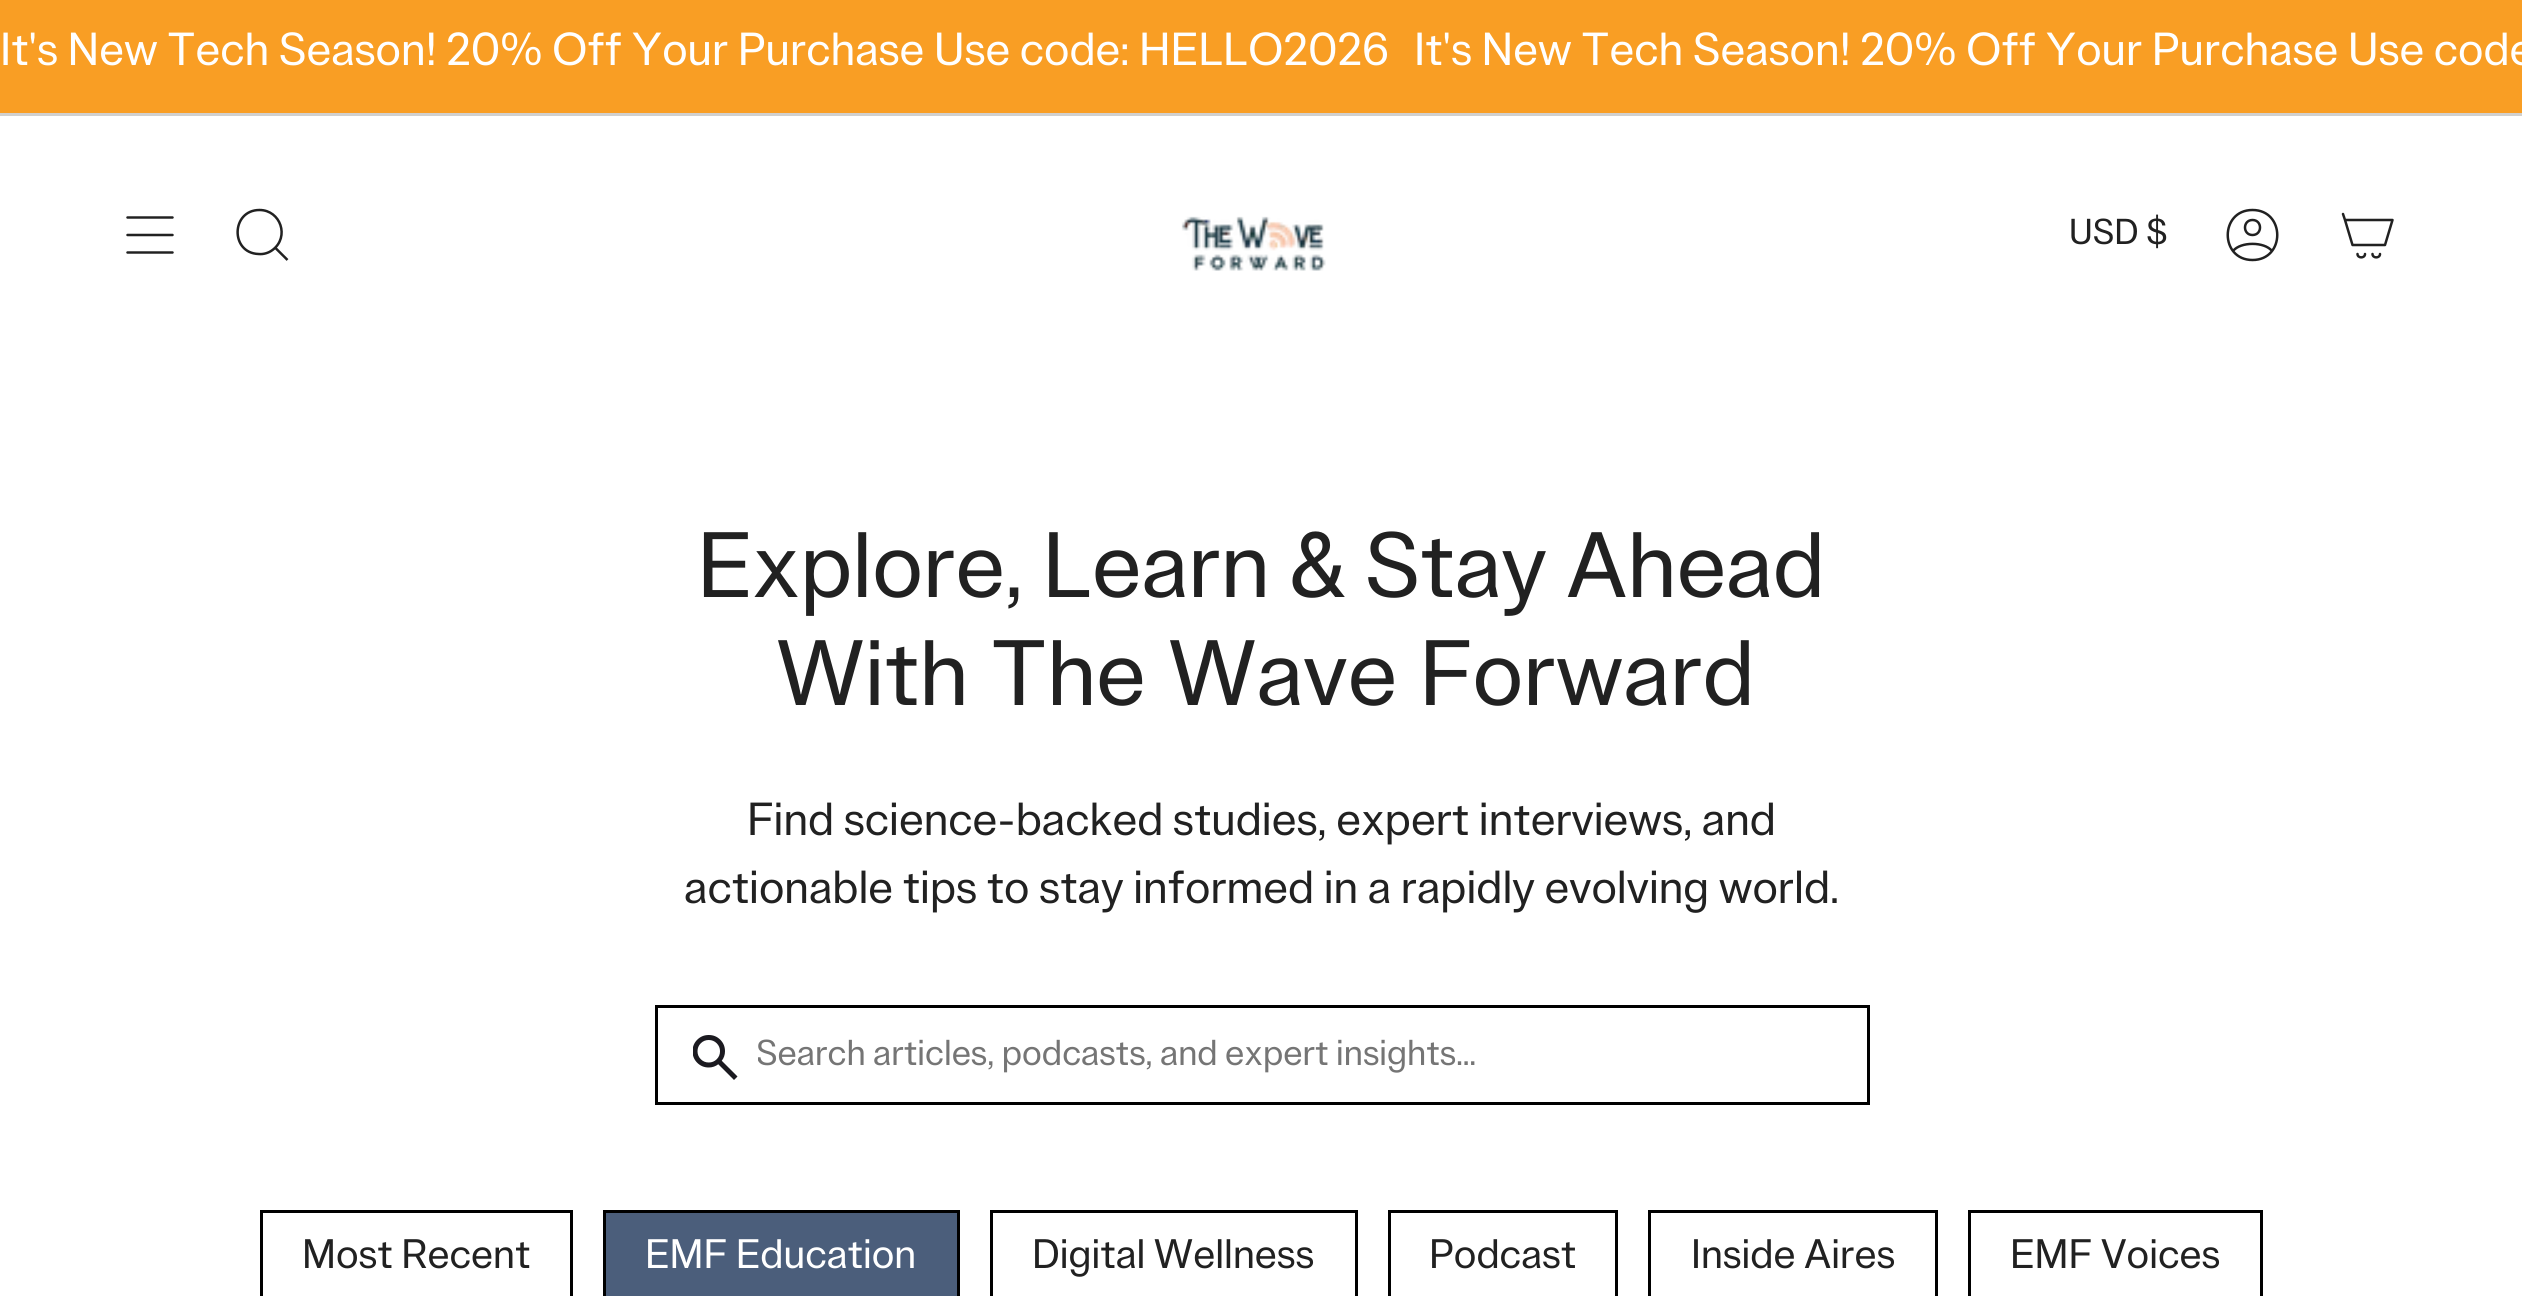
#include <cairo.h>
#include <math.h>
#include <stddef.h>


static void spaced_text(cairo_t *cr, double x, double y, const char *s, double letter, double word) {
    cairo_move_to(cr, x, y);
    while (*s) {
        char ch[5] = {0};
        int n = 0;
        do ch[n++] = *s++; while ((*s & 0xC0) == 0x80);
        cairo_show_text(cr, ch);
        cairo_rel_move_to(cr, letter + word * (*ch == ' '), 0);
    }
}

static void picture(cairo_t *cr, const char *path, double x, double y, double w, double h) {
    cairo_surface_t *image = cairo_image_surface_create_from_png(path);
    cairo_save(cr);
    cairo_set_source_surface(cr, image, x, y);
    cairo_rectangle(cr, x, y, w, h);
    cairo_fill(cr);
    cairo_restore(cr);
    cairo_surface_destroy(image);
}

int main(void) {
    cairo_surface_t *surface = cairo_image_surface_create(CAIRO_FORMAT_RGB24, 2522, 1296);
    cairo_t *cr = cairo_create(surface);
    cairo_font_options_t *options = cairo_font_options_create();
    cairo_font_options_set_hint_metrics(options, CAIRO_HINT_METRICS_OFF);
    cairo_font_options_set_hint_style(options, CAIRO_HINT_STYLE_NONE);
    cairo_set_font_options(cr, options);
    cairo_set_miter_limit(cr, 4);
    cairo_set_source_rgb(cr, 1, 1, 1);
    cairo_paint(cr);
    cairo_set_source_rgb(cr, 0.976, 0.62, 0.141);
    cairo_rectangle(cr, 0, 0, 2522, 113);
    cairo_fill(cr);
    cairo_set_source_rgb(cr, 0.82, 0.816, 0.808);
    cairo_rectangle(cr, 0, 113, 2522, 3);
    cairo_fill(cr);
    cairo_select_font_face(cr, "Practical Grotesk", CAIRO_FONT_SLANT_NORMAL, CAIRO_FONT_WEIGHT_NORMAL);
    cairo_set_font_size(cr, 45);
    cairo_set_source_rgb(cr, 1, 1, 1);
    cairo_move_to(cr, 0, 65);
    cairo_show_text(cr, "It's New Tech Season! 20% Off Your Purchase Use code: HELLO2026");
    cairo_move_to(cr, 1414, 65);
    cairo_show_text(cr, "It's New Tech Season! 20% Off Your Purchase Use code");
    cairo_new_path(cr);
    cairo_move_to(cr, 127.5, 217.5);
    cairo_line_to(cr, 172.5, 217.5);
    cairo_move_to(cr, 127.5, 235);
    cairo_line_to(cr, 172.5, 235);
    cairo_move_to(cr, 127.5, 252.5);
    cairo_line_to(cr, 172.5, 252.5);
    cairo_set_source_rgb(cr, 0.129, 0.129, 0.129);
    cairo_set_line_width(cr, 2.5);
    cairo_set_line_cap(cr, CAIRO_LINE_CAP_ROUND);
    cairo_set_line_join(cr, CAIRO_LINE_JOIN_ROUND);
    cairo_stroke(cr);
    cairo_new_path(cr);
    cairo_move_to(cr, 259.5, 210);
    cairo_curve_to(cr, 280.5, 210, 290, 237, 272.5, 250);
    cairo_curve_to(cr, 268.5, 253, 263.5, 254.5, 258.5, 254);
    cairo_curve_to(cr, 230, 253, 231, 210, 259.5, 210);
    cairo_close_path(cr);
    cairo_move_to(cr, 275.5, 248);
    cairo_line_to(cr, 287.5, 260);
    cairo_set_line_cap(cr, CAIRO_LINE_CAP_BUTT);
    cairo_set_line_join(cr, CAIRO_LINE_JOIN_MITER);
    cairo_stroke(cr);
    picture(cr, "img1.png", 1181, 216, 145, 55);
    cairo_set_font_size(cr, 35);
    cairo_move_to(cr, 2069, 244);
    cairo_show_text(cr, "USD $");
    cairo_new_path(cr);
    cairo_move_to(cr, 2252.5, 210);
    cairo_curve_to(cr, 2219.5, 210, 2219.5, 260, 2252.5, 260);
    cairo_curve_to(cr, 2285.5, 260, 2285.5, 210, 2252.5, 210);
    cairo_close_path(cr);
    cairo_move_to(cr, 2233, 251);
    cairo_curve_to(cr, 2240.5, 241.5, 2264.5, 241.5, 2272, 251);
    cairo_move_to(cr, 2252.5, 235);
    cairo_curve_to(cr, 2262.5, 235, 2262.5, 220, 2252.5, 220);
    cairo_curve_to(cr, 2242.5, 220, 2242.5, 235, 2252.5, 235);
    cairo_close_path(cr);
    cairo_set_line_cap(cr, CAIRO_LINE_CAP_ROUND);
    cairo_set_line_join(cr, CAIRO_LINE_JOIN_ROUND);
    cairo_stroke(cr);
    cairo_new_path(cr);
    cairo_move_to(cr, 2345, 220);
    cairo_line_to(cr, 2392.5, 220);
    cairo_line_to(cr, 2385, 245);
    cairo_line_to(cr, 2352.5, 245);
    cairo_close_path(cr);
    cairo_move_to(cr, 2345, 220);
    cairo_line_to(cr, 2343, 214);
    cairo_move_to(cr, 2365, 254);
    cairo_curve_to(cr, 2365, 258.5, 2357.5, 258.5, 2357.5, 254);
    cairo_move_to(cr, 2380, 254);
    cairo_curve_to(cr, 2380, 258.5, 2372.5, 258.5, 2372.5, 254);
    cairo_stroke(cr);
    cairo_set_font_size(cr, 90);
    cairo_move_to(cr, 697, 597);
    cairo_show_text(cr, "Explore, Learn & Stay Ahead");
    spaced_text(cr, 776, 705, "With The Wave Forward", 0, 3);
    cairo_set_font_size(cr, 45);
    cairo_move_to(cr, 747, 835);
    cairo_show_text(cr, "Find science-backed studies, expert interviews, and");
    cairo_move_to(cr, 684, 903);
    cairo_show_text(cr, "actionable tips to stay informed in a rapidly evolving world.");
    cairo_rectangle(cr, 656.5, 1006.5, 1212, 97);
    cairo_set_source_rgb(cr, 0, 0, 0);
    cairo_set_line_width(cr, 3);
    cairo_set_line_cap(cr, CAIRO_LINE_CAP_BUTT);
    cairo_set_line_join(cr, CAIRO_LINE_JOIN_MITER);
    cairo_stroke(cr);
    picture(cr, "img2.png", 693, 1035, 45, 45);
    cairo_save(cr);
    cairo_rectangle(cr, 758, 1035, 1070, 43);
    cairo_clip(cr);
    cairo_set_font_size(cr, 35);
    cairo_set_source_rgb(cr, 0.459, 0.459, 0.459);
    cairo_move_to(cr, 756, 1065);
    cairo_show_text(cr, "Search articles, podcasts, and expert insights…");
    cairo_restore(cr);
    cairo_rectangle(cr, 261.5, 1211.5, 310, 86);
    cairo_stroke(cr);
    cairo_set_font_size(cr, 40);
    cairo_set_source_rgb(cr, 0.129, 0.129, 0.129);
    cairo_move_to(cr, 302, 1268);
    cairo_show_text(cr, "Most Recent");
    cairo_set_source_rgb(cr, 0.294, 0.369, 0.482);
    cairo_rectangle(cr, 604.5, 1211.5, 354, 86);
    cairo_fill_preserve(cr);
    cairo_set_source_rgb(cr, 0, 0, 0);
    cairo_stroke(cr);
    cairo_set_source_rgb(cr, 1, 1, 1);
    cairo_move_to(cr, 645, 1268);
    cairo_show_text(cr, "EMF Education");
    cairo_rectangle(cr, 991.5, 1211.5, 365, 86);
    cairo_set_source_rgb(cr, 0, 0, 0);
    cairo_stroke(cr);
    cairo_set_source_rgb(cr, 0.129, 0.129, 0.129);
    cairo_move_to(cr, 1032, 1268);
    cairo_show_text(cr, "Digital Wellness");
    cairo_rectangle(cr, 1389.5, 1211.5, 227, 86);
    cairo_set_source_rgb(cr, 0, 0, 0);
    cairo_stroke(cr);
    cairo_set_source_rgb(cr, 0.129, 0.129, 0.129);
    cairo_move_to(cr, 1429, 1268);
    cairo_show_text(cr, "Podcast");
    cairo_rectangle(cr, 1649.5, 1211.5, 287, 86);
    cairo_set_source_rgb(cr, 0, 0, 0);
    cairo_stroke(cr);
    cairo_set_source_rgb(cr, 0.129, 0.129, 0.129);
    cairo_move_to(cr, 1691, 1268);
    cairo_show_text(cr, "Inside Aires");
    cairo_rectangle(cr, 1969.5, 1211.5, 292, 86);
    cairo_set_source_rgb(cr, 0, 0, 0);
    cairo_stroke(cr);
    cairo_set_source_rgb(cr, 0.129, 0.129, 0.129);
    cairo_move_to(cr, 2010, 1268);
    cairo_show_text(cr, "EMF Voices");
    cairo_surface_write_to_png(surface, "page.png");
    cairo_font_options_destroy(options);
    cairo_destroy(cr);
    cairo_surface_destroy(surface);
    return 0;
}
